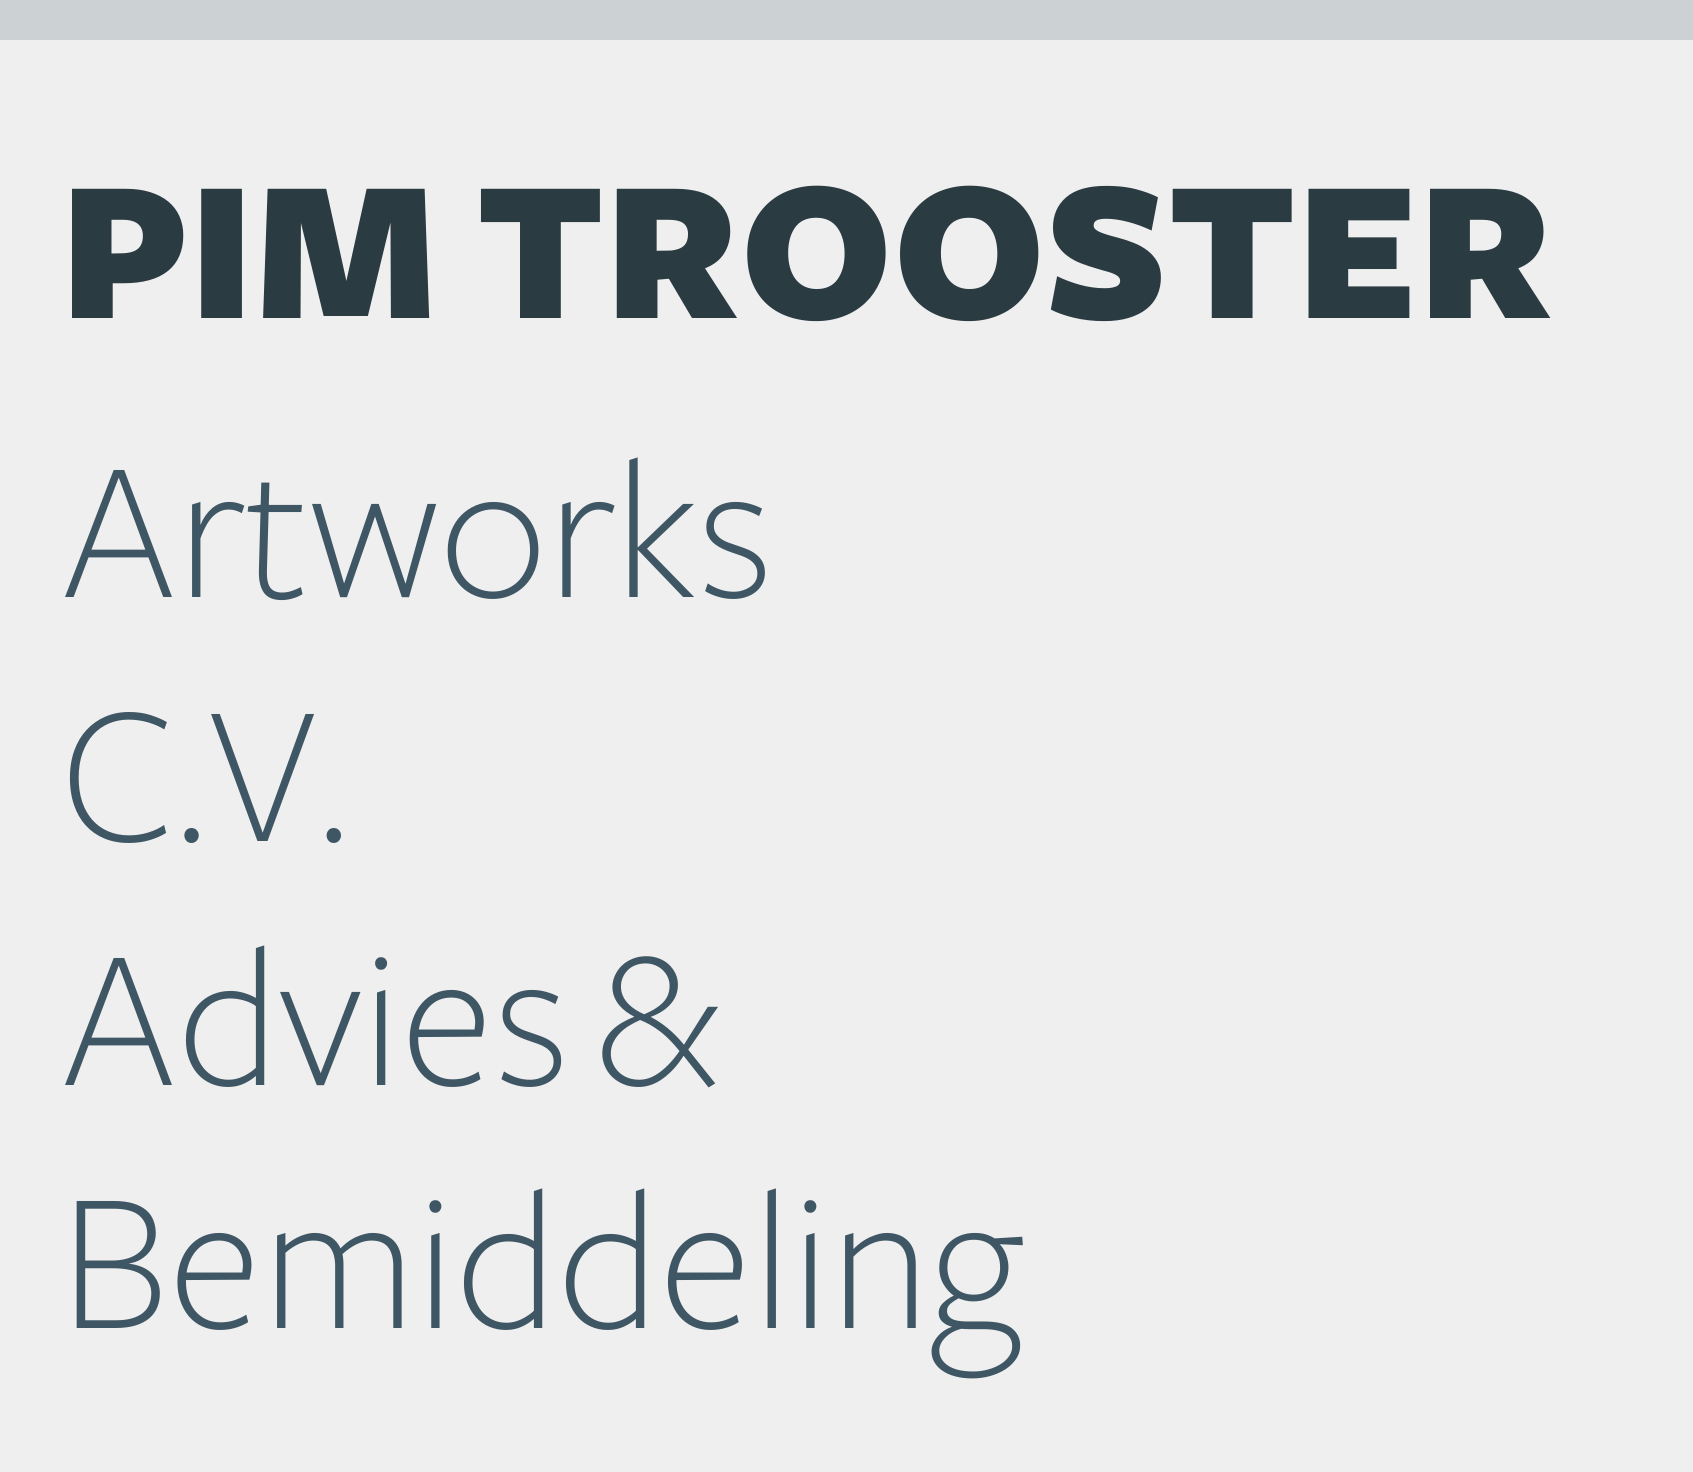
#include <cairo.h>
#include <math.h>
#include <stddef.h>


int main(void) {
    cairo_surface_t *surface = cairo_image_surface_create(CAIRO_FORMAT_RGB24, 1693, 1472);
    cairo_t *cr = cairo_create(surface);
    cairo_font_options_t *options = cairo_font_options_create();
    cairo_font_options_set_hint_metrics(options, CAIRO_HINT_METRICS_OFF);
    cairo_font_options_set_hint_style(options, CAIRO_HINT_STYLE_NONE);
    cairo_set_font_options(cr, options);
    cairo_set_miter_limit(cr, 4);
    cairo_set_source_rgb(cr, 0.937, 0.937, 0.937);
    cairo_paint(cr);
    cairo_set_source_rgb(cr, 0.8, 0.82, 0.827);
    cairo_rectangle(cr, 0, 0, 1693, 40);
    cairo_fill(cr);
    cairo_select_font_face(cr, "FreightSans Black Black", CAIRO_FONT_SLANT_NORMAL, CAIRO_FONT_WEIGHT_NORMAL);
    cairo_set_font_size(cr, 206.75);
    cairo_set_source_rgb(cr, 0.169, 0.231, 0.259);
    cairo_move_to(cr, 60, 318);
    cairo_show_text(cr, "PIM TROOSTER");
    cairo_select_font_face(cr, "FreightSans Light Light", CAIRO_FONT_SLANT_NORMAL, CAIRO_FONT_WEIGHT_NORMAL);
    cairo_set_font_size(cr, 203.25);
    cairo_set_source_rgb(cr, 0.247, 0.341, 0.396);
    cairo_move_to(cr, 60, 597);
    cairo_show_text(cr, "Artworks");
    cairo_move_to(cr, 60, 841);
    cairo_show_text(cr, "C.V.");
    cairo_move_to(cr, 60, 1085);
    cairo_show_text(cr, "Advies &");
    cairo_move_to(cr, 60, 1328);
    cairo_show_text(cr, "Bemiddeling");
    cairo_surface_write_to_png(surface, "page.png");
    cairo_font_options_destroy(options);
    cairo_destroy(cr);
    cairo_surface_destroy(surface);
    return 0;
}
